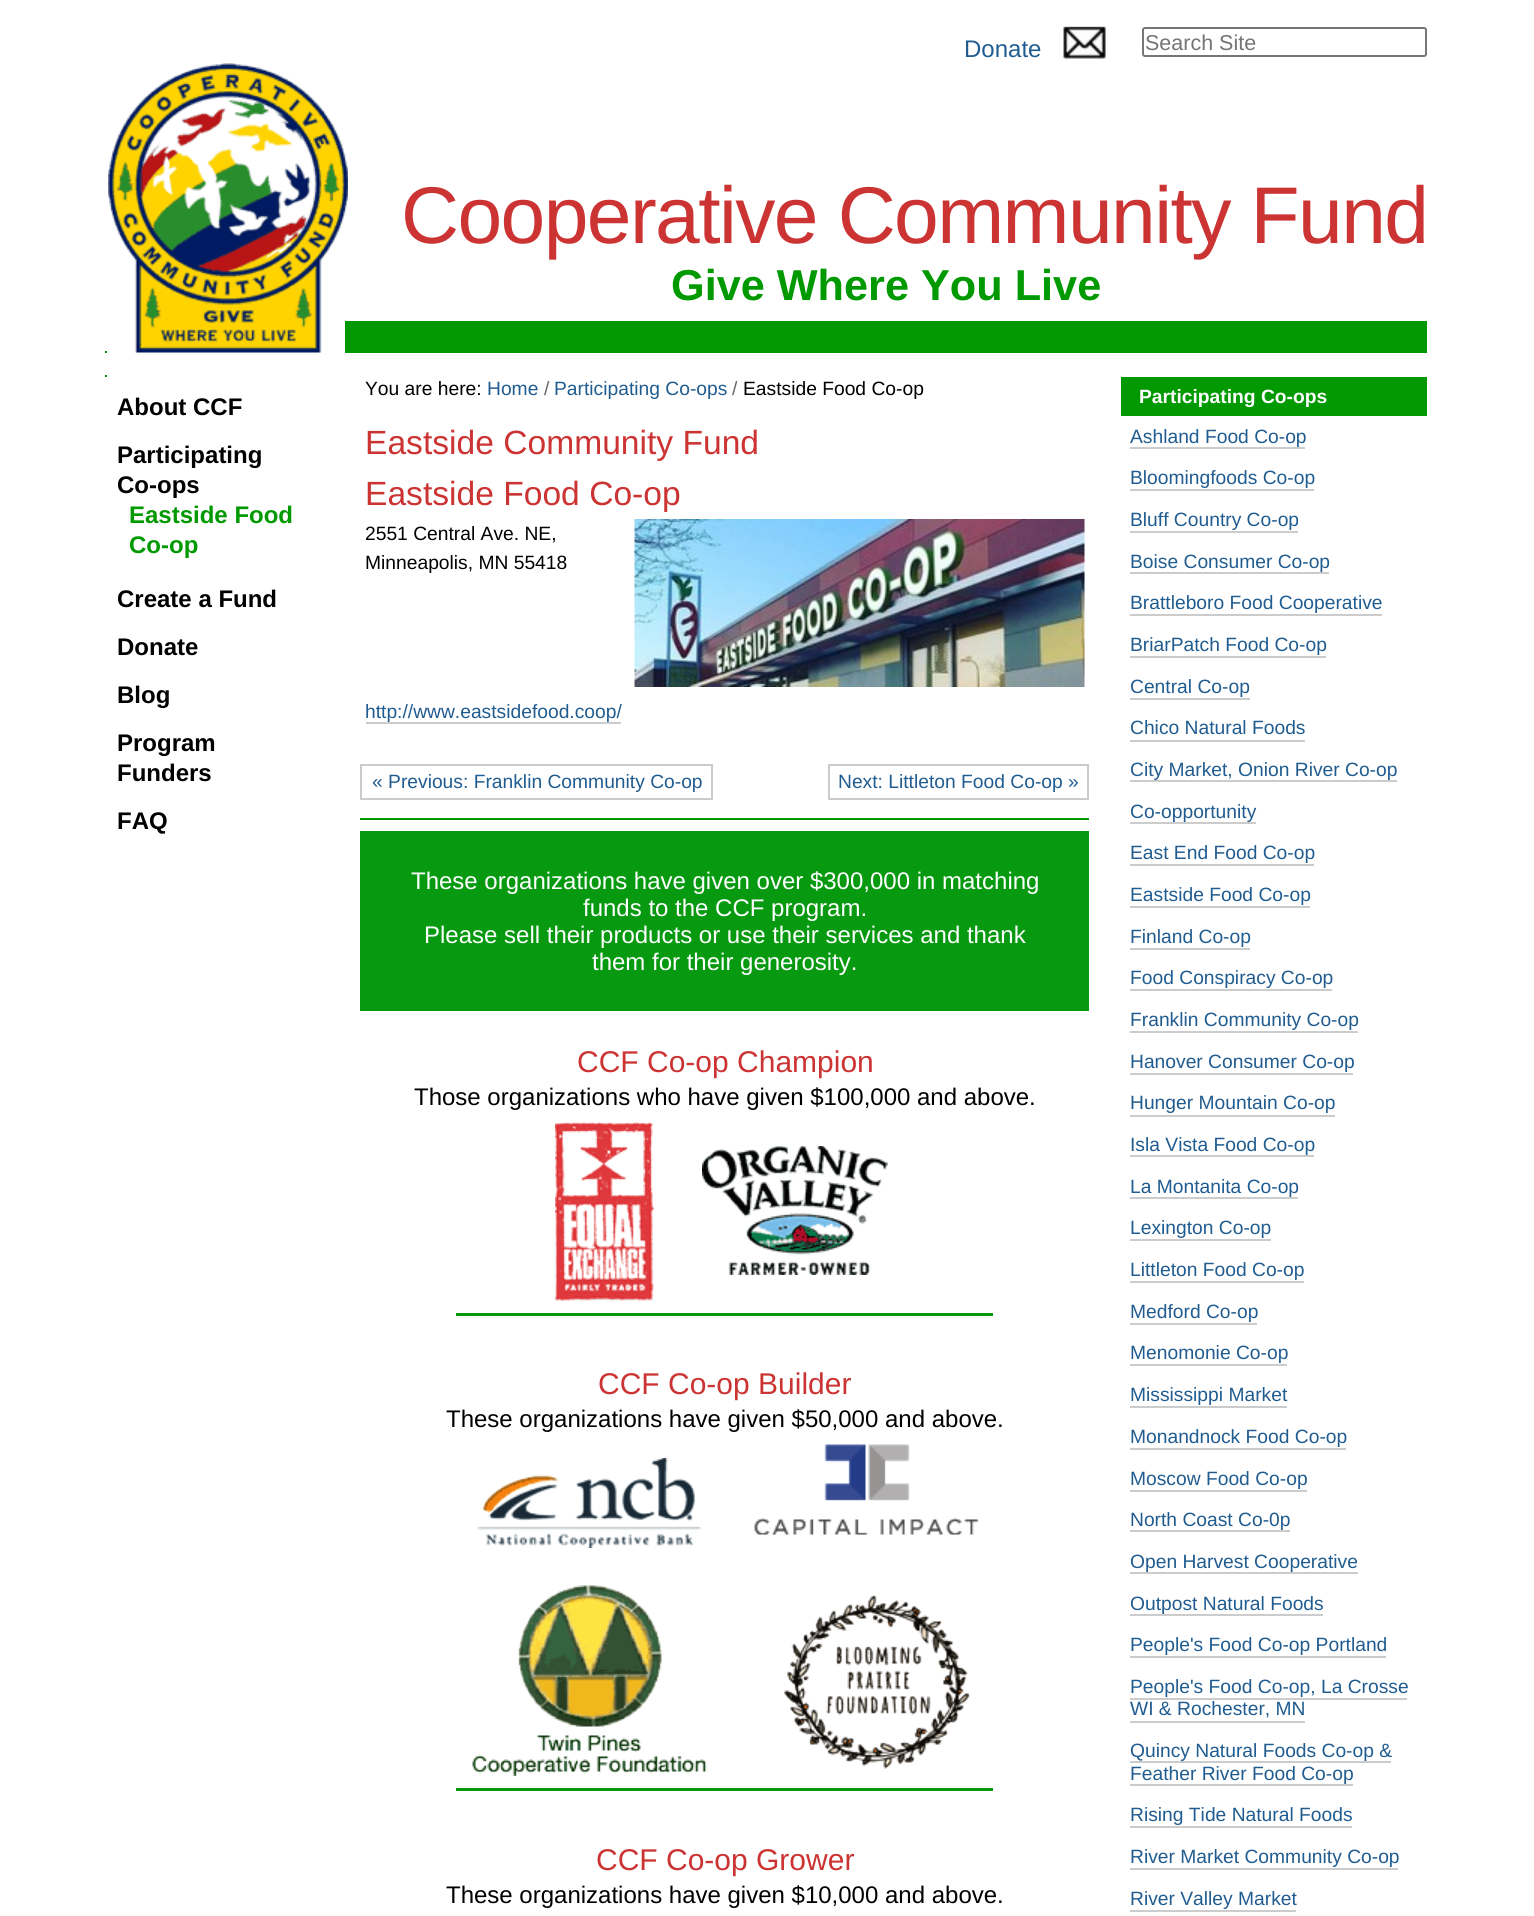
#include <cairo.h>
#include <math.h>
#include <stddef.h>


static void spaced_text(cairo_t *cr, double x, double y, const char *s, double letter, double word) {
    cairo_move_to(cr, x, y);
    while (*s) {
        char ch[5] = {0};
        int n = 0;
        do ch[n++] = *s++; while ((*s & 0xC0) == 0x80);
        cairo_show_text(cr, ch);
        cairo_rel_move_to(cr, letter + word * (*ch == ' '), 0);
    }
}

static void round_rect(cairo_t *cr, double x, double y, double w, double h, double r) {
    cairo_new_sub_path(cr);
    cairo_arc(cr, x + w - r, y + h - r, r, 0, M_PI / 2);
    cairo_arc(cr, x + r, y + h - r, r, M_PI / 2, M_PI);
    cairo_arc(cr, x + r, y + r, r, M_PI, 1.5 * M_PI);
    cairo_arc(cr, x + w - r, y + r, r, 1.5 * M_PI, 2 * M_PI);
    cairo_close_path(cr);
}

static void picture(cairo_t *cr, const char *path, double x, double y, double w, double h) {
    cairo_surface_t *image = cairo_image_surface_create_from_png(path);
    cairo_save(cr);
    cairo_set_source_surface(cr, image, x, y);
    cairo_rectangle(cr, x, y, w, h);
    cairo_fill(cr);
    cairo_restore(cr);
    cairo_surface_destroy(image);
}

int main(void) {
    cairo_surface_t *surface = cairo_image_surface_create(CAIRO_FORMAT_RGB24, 1534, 1916);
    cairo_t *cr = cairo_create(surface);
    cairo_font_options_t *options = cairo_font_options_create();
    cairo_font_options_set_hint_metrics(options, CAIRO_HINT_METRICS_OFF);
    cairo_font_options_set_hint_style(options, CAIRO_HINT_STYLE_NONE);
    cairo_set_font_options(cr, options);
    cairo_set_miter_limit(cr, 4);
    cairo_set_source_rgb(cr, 1, 1, 1);
    cairo_paint(cr);
    cairo_select_font_face(cr, "Liberation Sans", CAIRO_FONT_SLANT_NORMAL, CAIRO_FONT_WEIGHT_NORMAL);
    cairo_set_font_size(cr, 24);
    cairo_set_source_rgb(cr, 0.125, 0.361, 0.565);
    cairo_move_to(cr, 964, 57);
    cairo_show_text(cr, "Donate");
    picture(cr, "img1.png", 1063, 26, 43, 33);
    round_rect(cr, 1143, 28, 283, 28, 2);
    cairo_set_source_rgb(cr, 0.463, 0.463, 0.463);
    cairo_stroke(cr);
    cairo_set_font_size(cr, 21.5);
    cairo_set_source_rgb(cr, 0.459, 0.459, 0.459);
    cairo_move_to(cr, 1145, 50);
    cairo_show_text(cr, "Search Site");
    picture(cr, "img2.png", 108, 63, 240, 290);
    cairo_set_font_size(cr, 80.4);
    cairo_set_source_rgb(cr, 0.8, 0.2, 0.2);
    spaced_text(cr, 401, 243, "Cooperative Community Fund", -1.6, 0);
    cairo_set_source_rgb(cr, 0, 0.6, 0);
    cairo_rectangle(cr, 345, 321, 1082, 32);
    cairo_fill(cr);
    cairo_select_font_face(cr, "Liberation Sans", CAIRO_FONT_SLANT_NORMAL, CAIRO_FONT_WEIGHT_BOLD);
    cairo_set_font_size(cr, 43.25);
    cairo_move_to(cr, 671, 300);
    cairo_show_text(cr, "Give Where You Live");
    cairo_rectangle(cr, 105, 351, 2, 2);
    cairo_fill(cr);
    cairo_rectangle(cr, 105, 375, 2, 2);
    cairo_fill(cr);
    cairo_set_font_size(cr, 24);
    cairo_set_source_rgb(cr, 0, 0, 0);
    cairo_move_to(cr, 117, 415);
    cairo_show_text(cr, "About CCF");
    cairo_move_to(cr, 117, 463);
    cairo_show_text(cr, "Participating");
    cairo_move_to(cr, 117, 493);
    cairo_show_text(cr, "Co-ops");
    cairo_set_source_rgb(cr, 0, 0.6, 0);
    cairo_move_to(cr, 129, 523);
    cairo_show_text(cr, "Eastside Food");
    cairo_move_to(cr, 129, 553);
    cairo_show_text(cr, "Co-op");
    cairo_set_source_rgb(cr, 0, 0, 0);
    cairo_move_to(cr, 117, 607);
    cairo_show_text(cr, "Create a Fund");
    cairo_move_to(cr, 117, 655);
    cairo_show_text(cr, "Donate");
    cairo_move_to(cr, 117, 703);
    cairo_show_text(cr, "Blog");
    cairo_move_to(cr, 117, 751);
    cairo_show_text(cr, "Program");
    cairo_move_to(cr, 117, 781);
    cairo_show_text(cr, "Funders");
    cairo_move_to(cr, 117, 829);
    cairo_show_text(cr, "FAQ");
    cairo_select_font_face(cr, "Liberation Sans", CAIRO_FONT_SLANT_NORMAL, CAIRO_FONT_WEIGHT_NORMAL);
    cairo_set_font_size(cr, 19.25);
    cairo_move_to(cr, 365, 395);
    cairo_show_text(cr, "You are here:");
    cairo_set_source_rgb(cr, 0.125, 0.361, 0.565);
    cairo_move_to(cr, 487, 395);
    cairo_show_text(cr, "Home");
    cairo_set_source_rgb(cr, 0.4, 0.4, 0.4);
    cairo_move_to(cr, 544, 395);
    cairo_show_text(cr, "/");
    cairo_set_source_rgb(cr, 0.125, 0.361, 0.565);
    cairo_move_to(cr, 554, 395);
    cairo_show_text(cr, "Participating Co-ops");
    cairo_set_source_rgb(cr, 0.4, 0.4, 0.4);
    cairo_move_to(cr, 732, 395);
    cairo_show_text(cr, "/");
    cairo_set_source_rgb(cr, 0, 0, 0);
    cairo_move_to(cr, 743, 395);
    cairo_show_text(cr, "Eastside Food Co-op");
    cairo_set_font_size(cr, 33.6);
    cairo_set_source_rgb(cr, 0.8, 0.2, 0.2);
    cairo_move_to(cr, 365, 454);
    cairo_show_text(cr, "Eastside Community Fund");
    cairo_move_to(cr, 365, 505);
    cairo_show_text(cr, "Eastside Food Co-op");
    cairo_set_font_size(cr, 19.25);
    cairo_set_source_rgb(cr, 0, 0, 0);
    cairo_move_to(cr, 365, 540);
    cairo_show_text(cr, "2551 Central Ave. NE,");
    cairo_move_to(cr, 365, 569);
    cairo_show_text(cr, "Minneapolis, MN 55418");
    picture(cr, "img3.png", 634, 519, 451, 168);
    cairo_set_source_rgb(cr, 0.125, 0.361, 0.565);
    cairo_move_to(cr, 365, 718);
    cairo_show_text(cr, "http://www.eastsidefood.coop/");
    cairo_set_source_rgb(cr, 0.8, 0.8, 0.8);
    cairo_rectangle(cr, 366, 722, 255, 2);
    cairo_fill(cr);
    cairo_rectangle(cr, 361, 765, 351, 34);
    cairo_stroke(cr);
    cairo_set_source_rgb(cr, 0.125, 0.361, 0.565);
    cairo_move_to(cr, 372, 788);
    cairo_show_text(cr, "« Previous: Franklin Community Co-op");
    cairo_rectangle(cr, 829, 765, 259, 34);
    cairo_set_source_rgb(cr, 0.8, 0.8, 0.8);
    cairo_stroke(cr);
    cairo_set_source_rgb(cr, 0.125, 0.361, 0.565);
    cairo_move_to(cr, 838, 788);
    cairo_show_text(cr, "Next: Littleton Food Co-op »");
    cairo_set_source_rgb(cr, 0, 0.6, 0);
    cairo_rectangle(cr, 360, 818, 729, 2);
    cairo_fill(cr);
    cairo_set_source_rgb(cr, 0.031, 0.604, 0.063);
    cairo_rectangle(cr, 360, 831, 729, 180);
    cairo_fill(cr);
    cairo_set_font_size(cr, 24);
    cairo_set_source_rgb(cr, 1, 1, 1);
    cairo_move_to(cr, 411, 889);
    cairo_show_text(cr, "These organizations have given over $300,000 in matching");
    cairo_move_to(cr, 583, 916);
    cairo_show_text(cr, "funds to the CCF program.");
    cairo_move_to(cr, 424, 943);
    cairo_show_text(cr, "Please sell their products or use their services and thank");
    cairo_move_to(cr, 592, 970);
    cairo_show_text(cr, "them for their generosity.");
    cairo_set_font_size(cr, 30);
    cairo_set_source_rgb(cr, 0.8, 0.2, 0.2);
    cairo_move_to(cr, 577, 1072);
    cairo_show_text(cr, "CCF Co-op Champion");
    cairo_set_font_size(cr, 24);
    cairo_set_source_rgb(cr, 0, 0, 0);
    cairo_move_to(cr, 414, 1105);
    cairo_show_text(cr, "Those organizations who have given $100,000 and above.");
    picture(cr, "img4.png", 555, 1122, 99, 179);
    picture(cr, "img5.png", 702, 1146, 186, 129);
    cairo_set_source_rgb(cr, 0.031, 0.604, 0.063);
    cairo_rectangle(cr, 456, 1313, 537, 3);
    cairo_fill(cr);
    cairo_set_font_size(cr, 30);
    cairo_set_source_rgb(cr, 0.8, 0.2, 0.2);
    cairo_move_to(cr, 598, 1394);
    cairo_show_text(cr, "CCF Co-op Builder");
    cairo_set_font_size(cr, 24);
    cairo_set_source_rgb(cr, 0, 0, 0);
    cairo_move_to(cr, 446, 1427);
    cairo_show_text(cr, "These organizations have given $50,000 and above.");
    picture(cr, "img6.png", 477, 1458, 224, 90);
    picture(cr, "img7.png", 754, 1444, 224, 91);
    picture(cr, "img8.png", 472, 1585, 235, 191);
    picture(cr, "img9.png", 784, 1594, 186, 175);
    cairo_set_source_rgb(cr, 0.031, 0.604, 0.063);
    cairo_rectangle(cr, 456, 1788, 537, 3);
    cairo_fill(cr);
    cairo_set_font_size(cr, 30);
    cairo_set_source_rgb(cr, 0.8, 0.2, 0.2);
    cairo_move_to(cr, 596, 1870);
    cairo_show_text(cr, "CCF Co-op Grower");
    cairo_set_font_size(cr, 24);
    cairo_set_source_rgb(cr, 0, 0, 0);
    cairo_move_to(cr, 446, 1903);
    cairo_show_text(cr, "These organizations have given $10,000 and above.");
    cairo_set_source_rgb(cr, 0, 0.6, 0);
    cairo_rectangle(cr, 1121, 377, 306, 39);
    cairo_fill(cr);
    cairo_select_font_face(cr, "Liberation Sans", CAIRO_FONT_SLANT_NORMAL, CAIRO_FONT_WEIGHT_BOLD);
    cairo_set_font_size(cr, 19.25);
    cairo_set_source_rgb(cr, 1, 1, 1);
    cairo_move_to(cr, 1139, 403);
    cairo_show_text(cr, "Participating Co-ops");
    cairo_select_font_face(cr, "Liberation Sans", CAIRO_FONT_SLANT_NORMAL, CAIRO_FONT_WEIGHT_NORMAL);
    cairo_set_source_rgb(cr, 0.125, 0.361, 0.565);
    cairo_move_to(cr, 1130, 443);
    cairo_show_text(cr, "Ashland Food Co-op");
    cairo_set_source_rgb(cr, 0.8, 0.8, 0.8);
    cairo_rectangle(cr, 1130, 447, 175, 2);
    cairo_fill(cr);
    cairo_set_source_rgb(cr, 0.125, 0.361, 0.565);
    cairo_move_to(cr, 1130, 484);
    cairo_show_text(cr, "Bloomingfoods Co-op");
    cairo_set_source_rgb(cr, 0.8, 0.8, 0.8);
    cairo_rectangle(cr, 1130, 489, 184, 2);
    cairo_fill(cr);
    cairo_set_source_rgb(cr, 0.125, 0.361, 0.565);
    cairo_move_to(cr, 1130, 526);
    cairo_show_text(cr, "Bluff Country Co-op");
    cairo_set_source_rgb(cr, 0.8, 0.8, 0.8);
    cairo_rectangle(cr, 1130, 531, 168, 2);
    cairo_fill(cr);
    cairo_set_source_rgb(cr, 0.125, 0.361, 0.565);
    cairo_move_to(cr, 1130, 568);
    cairo_show_text(cr, "Boise Consumer Co-op");
    cairo_set_source_rgb(cr, 0.8, 0.8, 0.8);
    cairo_rectangle(cr, 1130, 572, 199, 2);
    cairo_fill(cr);
    cairo_set_source_rgb(cr, 0.125, 0.361, 0.565);
    cairo_move_to(cr, 1130, 609);
    cairo_show_text(cr, "Brattleboro Food Cooperative");
    cairo_set_source_rgb(cr, 0.8, 0.8, 0.8);
    cairo_rectangle(cr, 1130, 614, 252, 2);
    cairo_fill(cr);
    cairo_set_source_rgb(cr, 0.125, 0.361, 0.565);
    cairo_move_to(cr, 1130, 651);
    cairo_show_text(cr, "BriarPatch Food Co-op");
    cairo_set_source_rgb(cr, 0.8, 0.8, 0.8);
    cairo_rectangle(cr, 1130, 656, 196, 2);
    cairo_fill(cr);
    cairo_set_source_rgb(cr, 0.125, 0.361, 0.565);
    cairo_move_to(cr, 1130, 693);
    cairo_show_text(cr, "Central Co-op");
    cairo_set_source_rgb(cr, 0.8, 0.8, 0.8);
    cairo_rectangle(cr, 1130, 698, 120, 2);
    cairo_fill(cr);
    cairo_set_source_rgb(cr, 0.125, 0.361, 0.565);
    cairo_move_to(cr, 1130, 734);
    cairo_show_text(cr, "Chico Natural Foods");
    cairo_set_source_rgb(cr, 0.8, 0.8, 0.8);
    cairo_rectangle(cr, 1130, 740, 175, 2);
    cairo_fill(cr);
    cairo_set_source_rgb(cr, 0.125, 0.361, 0.565);
    cairo_move_to(cr, 1130, 776);
    cairo_show_text(cr, "City Market, Onion River Co-op");
    cairo_set_source_rgb(cr, 0.8, 0.8, 0.8);
    cairo_rectangle(cr, 1130, 780, 267, 2);
    cairo_fill(cr);
    cairo_set_source_rgb(cr, 0.125, 0.361, 0.565);
    cairo_move_to(cr, 1130, 818);
    cairo_show_text(cr, "Co-opportunity");
    cairo_set_source_rgb(cr, 0.8, 0.8, 0.8);
    cairo_rectangle(cr, 1130, 822, 126, 2);
    cairo_fill(cr);
    cairo_set_source_rgb(cr, 0.125, 0.361, 0.565);
    cairo_move_to(cr, 1130, 859);
    cairo_show_text(cr, "East End Food Co-op");
    cairo_set_source_rgb(cr, 0.8, 0.8, 0.8);
    cairo_rectangle(cr, 1130, 864, 184, 2);
    cairo_fill(cr);
    cairo_set_source_rgb(cr, 0.125, 0.361, 0.565);
    cairo_move_to(cr, 1130, 901);
    cairo_show_text(cr, "Eastside Food Co-op");
    cairo_set_source_rgb(cr, 0.8, 0.8, 0.8);
    cairo_rectangle(cr, 1130, 906, 180, 2);
    cairo_fill(cr);
    cairo_set_source_rgb(cr, 0.125, 0.361, 0.565);
    cairo_move_to(cr, 1130, 943);
    cairo_show_text(cr, "Finland Co-op");
    cairo_set_source_rgb(cr, 0.8, 0.8, 0.8);
    cairo_rectangle(cr, 1130, 948, 120, 2);
    cairo_fill(cr);
    cairo_set_source_rgb(cr, 0.125, 0.361, 0.565);
    cairo_move_to(cr, 1130, 984);
    cairo_show_text(cr, "Food Conspiracy Co-op");
    cairo_set_source_rgb(cr, 0.8, 0.8, 0.8);
    cairo_rectangle(cr, 1130, 989, 202, 2);
    cairo_fill(cr);
    cairo_set_source_rgb(cr, 0.125, 0.361, 0.565);
    cairo_move_to(cr, 1130, 1026);
    cairo_show_text(cr, "Franklin Community Co-op");
    cairo_set_source_rgb(cr, 0.8, 0.8, 0.8);
    cairo_rectangle(cr, 1130, 1031, 228, 2);
    cairo_fill(cr);
    cairo_set_source_rgb(cr, 0.125, 0.361, 0.565);
    cairo_move_to(cr, 1130, 1068);
    cairo_show_text(cr, "Hanover Consumer Co-op");
    cairo_set_source_rgb(cr, 0.8, 0.8, 0.8);
    cairo_rectangle(cr, 1130, 1073, 223, 2);
    cairo_fill(cr);
    cairo_set_source_rgb(cr, 0.125, 0.361, 0.565);
    cairo_move_to(cr, 1130, 1109);
    cairo_show_text(cr, "Hunger Mountain Co-op");
    cairo_set_source_rgb(cr, 0.8, 0.8, 0.8);
    cairo_rectangle(cr, 1130, 1115, 205, 2);
    cairo_fill(cr);
    cairo_set_source_rgb(cr, 0.125, 0.361, 0.565);
    cairo_move_to(cr, 1130, 1151);
    cairo_show_text(cr, "Isla Vista Food Co-op");
    cairo_set_source_rgb(cr, 0.8, 0.8, 0.8);
    cairo_rectangle(cr, 1130, 1155, 184, 2);
    cairo_fill(cr);
    cairo_set_source_rgb(cr, 0.125, 0.361, 0.565);
    cairo_move_to(cr, 1130, 1193);
    cairo_show_text(cr, "La Montanita Co-op");
    cairo_set_source_rgb(cr, 0.8, 0.8, 0.8);
    cairo_rectangle(cr, 1130, 1197, 168, 2);
    cairo_fill(cr);
    cairo_set_source_rgb(cr, 0.125, 0.361, 0.565);
    cairo_move_to(cr, 1130, 1234);
    cairo_show_text(cr, "Lexington Co-op");
    cairo_set_source_rgb(cr, 0.8, 0.8, 0.8);
    cairo_rectangle(cr, 1130, 1239, 141, 2);
    cairo_fill(cr);
    cairo_set_source_rgb(cr, 0.125, 0.361, 0.565);
    cairo_move_to(cr, 1130, 1276);
    cairo_show_text(cr, "Littleton Food Co-op");
    cairo_set_source_rgb(cr, 0.8, 0.8, 0.8);
    cairo_rectangle(cr, 1130, 1281, 174, 2);
    cairo_fill(cr);
    cairo_set_source_rgb(cr, 0.125, 0.361, 0.565);
    cairo_move_to(cr, 1130, 1318);
    cairo_show_text(cr, "Medford Co-op");
    cairo_set_source_rgb(cr, 0.8, 0.8, 0.8);
    cairo_rectangle(cr, 1130, 1323, 127, 2);
    cairo_fill(cr);
    cairo_set_source_rgb(cr, 0.125, 0.361, 0.565);
    cairo_move_to(cr, 1130, 1359);
    cairo_show_text(cr, "Menomonie Co-op");
    cairo_set_source_rgb(cr, 0.8, 0.8, 0.8);
    cairo_rectangle(cr, 1130, 1364, 157, 2);
    cairo_fill(cr);
    cairo_set_source_rgb(cr, 0.125, 0.361, 0.565);
    cairo_move_to(cr, 1130, 1401);
    cairo_show_text(cr, "Mississippi Market");
    cairo_set_source_rgb(cr, 0.8, 0.8, 0.8);
    cairo_rectangle(cr, 1130, 1406, 157, 2);
    cairo_fill(cr);
    cairo_set_source_rgb(cr, 0.125, 0.361, 0.565);
    cairo_move_to(cr, 1130, 1443);
    cairo_show_text(cr, "Monandnock Food Co-op");
    cairo_set_source_rgb(cr, 0.8, 0.8, 0.8);
    cairo_rectangle(cr, 1130, 1448, 216, 2);
    cairo_fill(cr);
    cairo_set_source_rgb(cr, 0.125, 0.361, 0.565);
    cairo_move_to(cr, 1130, 1485);
    cairo_show_text(cr, "Moscow Food Co-op");
    cairo_set_source_rgb(cr, 0.8, 0.8, 0.8);
    cairo_rectangle(cr, 1130, 1490, 177, 2);
    cairo_fill(cr);
    cairo_set_source_rgb(cr, 0.125, 0.361, 0.565);
    cairo_move_to(cr, 1130, 1526);
    cairo_show_text(cr, "North Coast Co-0p");
    cairo_set_source_rgb(cr, 0.8, 0.8, 0.8);
    cairo_rectangle(cr, 1130, 1530, 160, 2);
    cairo_fill(cr);
    cairo_set_source_rgb(cr, 0.125, 0.361, 0.565);
    cairo_move_to(cr, 1130, 1568);
    cairo_show_text(cr, "Open Harvest Cooperative");
    cairo_set_source_rgb(cr, 0.8, 0.8, 0.8);
    cairo_rectangle(cr, 1130, 1572, 228, 2);
    cairo_fill(cr);
    cairo_set_source_rgb(cr, 0.125, 0.361, 0.565);
    cairo_move_to(cr, 1130, 1610);
    cairo_show_text(cr, "Outpost Natural Foods");
    cairo_set_source_rgb(cr, 0.8, 0.8, 0.8);
    cairo_rectangle(cr, 1130, 1614, 193, 2);
    cairo_fill(cr);
    cairo_set_source_rgb(cr, 0.125, 0.361, 0.565);
    cairo_move_to(cr, 1130, 1651);
    cairo_show_text(cr, "People's Food Co-op Portland");
    cairo_set_source_rgb(cr, 0.8, 0.8, 0.8);
    cairo_rectangle(cr, 1130, 1656, 256, 2);
    cairo_fill(cr);
    cairo_set_source_rgb(cr, 0.125, 0.361, 0.565);
    cairo_move_to(cr, 1130, 1693);
    cairo_show_text(cr, "People's Food Co-op, La Crosse");
    cairo_move_to(cr, 1130, 1715);
    cairo_show_text(cr, "WI & Rochester, MN");
    cairo_set_source_rgb(cr, 0.8, 0.8, 0.8);
    cairo_rectangle(cr, 1130, 1698, 277, 2);
    cairo_fill(cr);
    cairo_rectangle(cr, 1130, 1721, 175, 2);
    cairo_fill(cr);
    cairo_set_source_rgb(cr, 0.125, 0.361, 0.565);
    cairo_move_to(cr, 1130, 1757);
    cairo_show_text(cr, "Quincy Natural Foods Co-op &");
    cairo_set_source_rgb(cr, 0.8, 0.8, 0.8);
    cairo_rectangle(cr, 1130, 1761, 261, 2);
    cairo_fill(cr);
    cairo_set_source_rgb(cr, 0.125, 0.361, 0.565);
    cairo_move_to(cr, 1130, 1780);
    cairo_show_text(cr, "Feather River Food Co-op");
    cairo_set_source_rgb(cr, 0.8, 0.8, 0.8);
    cairo_rectangle(cr, 1130, 1784, 223, 2);
    cairo_fill(cr);
    cairo_set_source_rgb(cr, 0.125, 0.361, 0.565);
    cairo_move_to(cr, 1130, 1821);
    cairo_show_text(cr, "Rising Tide Natural Foods");
    cairo_set_source_rgb(cr, 0.8, 0.8, 0.8);
    cairo_rectangle(cr, 1130, 1826, 222, 2);
    cairo_fill(cr);
    cairo_set_source_rgb(cr, 0.125, 0.361, 0.565);
    cairo_move_to(cr, 1130, 1863);
    cairo_show_text(cr, "River Market Community Co-op");
    cairo_set_source_rgb(cr, 0.8, 0.8, 0.8);
    cairo_rectangle(cr, 1130, 1868, 268, 2);
    cairo_fill(cr);
    cairo_set_source_rgb(cr, 0.125, 0.361, 0.565);
    cairo_move_to(cr, 1130, 1905);
    cairo_show_text(cr, "River Valley Market");
    cairo_set_source_rgb(cr, 0.8, 0.8, 0.8);
    cairo_rectangle(cr, 1130, 1910, 166, 2);
    cairo_fill(cr);
    cairo_surface_write_to_png(surface, "page.png");
    cairo_font_options_destroy(options);
    cairo_destroy(cr);
    cairo_surface_destroy(surface);
    return 0;
}
